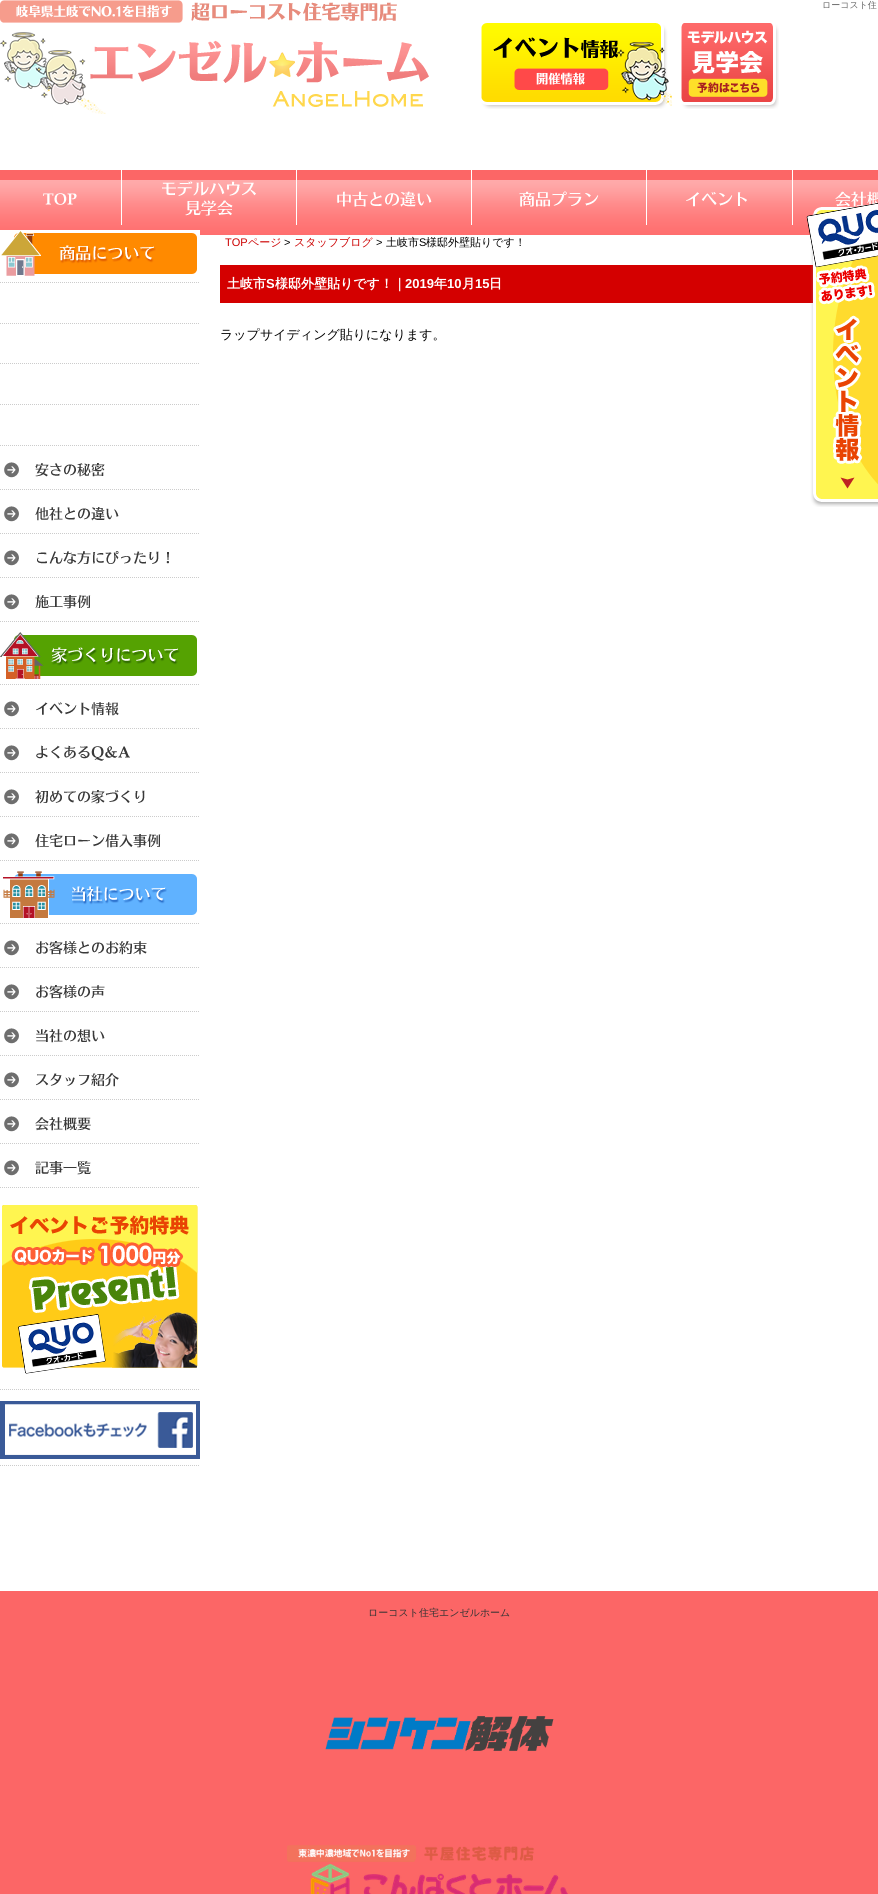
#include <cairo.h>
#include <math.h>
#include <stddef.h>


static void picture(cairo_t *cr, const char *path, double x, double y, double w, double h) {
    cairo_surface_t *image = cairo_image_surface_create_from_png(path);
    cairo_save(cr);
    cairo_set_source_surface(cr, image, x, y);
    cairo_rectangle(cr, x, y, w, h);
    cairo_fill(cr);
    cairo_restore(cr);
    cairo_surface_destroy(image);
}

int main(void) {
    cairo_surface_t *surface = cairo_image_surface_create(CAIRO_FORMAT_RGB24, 878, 1894);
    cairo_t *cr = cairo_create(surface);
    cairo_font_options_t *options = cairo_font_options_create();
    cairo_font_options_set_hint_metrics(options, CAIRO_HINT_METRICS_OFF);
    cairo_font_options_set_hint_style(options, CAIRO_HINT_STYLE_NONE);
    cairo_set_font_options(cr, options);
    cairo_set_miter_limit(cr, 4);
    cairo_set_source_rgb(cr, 1, 1, 1);
    cairo_paint(cr);
    picture(cr, "img1.png", 0, 170, 878, 65);
    picture(cr, "img2.png", 0, 0, 429, 114);
    cairo_select_font_face(cr, "WenQuanYi Zen Hei Medium", CAIRO_FONT_SLANT_NORMAL, CAIRO_FONT_WEIGHT_NORMAL);
    cairo_set_font_size(cr, 9);
    cairo_set_source_rgb(cr, 0.4, 0.4, 0.4);
    cairo_move_to(cr, 822, 8);
    cairo_show_text(cr, "ローコスト住");
    picture(cr, "img3.png", 481, 23, 191, 86);
    picture(cr, "img4.png", 681, 23, 98, 86);
    cairo_set_source_rgb(cr, 1, 1, 1);
    cairo_rectangle(cr, 121, 170, 1, 55);
    cairo_fill(cr);
    picture(cr, "img5.png", 43, 193, 34, 12);
    cairo_rectangle(cr, 296, 170, 1, 55);
    cairo_fill(cr);
    picture(cr, "img6.png", 162, 181, 94, 35);
    cairo_rectangle(cr, 471, 170, 1, 55);
    cairo_fill(cr);
    picture(cr, "img7.png", 337, 191, 95, 16);
    cairo_rectangle(cr, 646, 170, 1, 55);
    cairo_fill(cr);
    picture(cr, "img8.png", 519, 191, 80, 16);
    cairo_rectangle(cr, 792, 170, 1, 55);
    cairo_fill(cr);
    picture(cr, "img9.png", 686, 192, 61, 15);
    picture(cr, "img10.png", 835, 191, 43, 16);
    cairo_new_path(cr);
    cairo_move_to(cr, 0, 282.5);
    cairo_line_to(cr, 200, 282.5);
    cairo_set_source_rgb(cr, 0.8, 0.8, 0.8);
    cairo_set_line_width(cr, 1);
    cairo_set_dash(cr, (double[]){1, 1}, 2, 0);
    cairo_stroke(cr);
    picture(cr, "img11.png", 0, 230, 200, 46);
    cairo_new_path(cr);
    cairo_move_to(cr, 0, 323.5);
    cairo_line_to(cr, 200, 323.5);
    cairo_stroke(cr);
    cairo_new_path(cr);
    cairo_move_to(cr, 0, 363.5);
    cairo_line_to(cr, 200, 363.5);
    cairo_stroke(cr);
    cairo_new_path(cr);
    cairo_move_to(cr, 0, 404.5);
    cairo_line_to(cr, 200, 404.5);
    cairo_stroke(cr);
    cairo_new_path(cr);
    cairo_move_to(cr, 0, 445.5);
    cairo_line_to(cr, 200, 445.5);
    cairo_stroke(cr);
    cairo_new_path(cr);
    cairo_move_to(cr, 0, 489.5);
    cairo_line_to(cr, 200, 489.5);
    cairo_stroke(cr);
    picture(cr, "img12.png", 4, 462, 101, 16);
    cairo_new_path(cr);
    cairo_move_to(cr, 0, 533.5);
    cairo_line_to(cr, 200, 533.5);
    cairo_stroke(cr);
    picture(cr, "img13.png", 4, 506, 115, 16);
    cairo_new_path(cr);
    cairo_move_to(cr, 0, 577.5);
    cairo_line_to(cr, 200, 577.5);
    cairo_stroke(cr);
    picture(cr, "img14.png", 4, 550, 165, 16);
    cairo_new_path(cr);
    cairo_move_to(cr, 0, 621.5);
    cairo_line_to(cr, 200, 621.5);
    cairo_stroke(cr);
    picture(cr, "img15.png", 4, 594, 87, 16);
    cairo_new_path(cr);
    cairo_move_to(cr, 0, 684.5);
    cairo_line_to(cr, 200, 684.5);
    cairo_stroke(cr);
    picture(cr, "img16.png", 0, 632, 197, 47);
    cairo_new_path(cr);
    cairo_move_to(cr, 0, 728.5);
    cairo_line_to(cr, 200, 728.5);
    cairo_stroke(cr);
    picture(cr, "img17.png", 4, 701, 115, 16);
    cairo_new_path(cr);
    cairo_move_to(cr, 0, 772.5);
    cairo_line_to(cr, 200, 772.5);
    cairo_stroke(cr);
    picture(cr, "img18.png", 4, 745, 126, 16);
    cairo_new_path(cr);
    cairo_move_to(cr, 0, 816.5);
    cairo_line_to(cr, 200, 816.5);
    cairo_stroke(cr);
    picture(cr, "img19.png", 4, 789, 141, 16);
    cairo_new_path(cr);
    cairo_move_to(cr, 0, 860.5);
    cairo_line_to(cr, 200, 860.5);
    cairo_stroke(cr);
    picture(cr, "img20.png", 4, 833, 157, 16);
    cairo_new_path(cr);
    cairo_move_to(cr, 0, 923.5);
    cairo_line_to(cr, 200, 923.5);
    cairo_stroke(cr);
    picture(cr, "img21.png", 3, 871, 194, 47);
    cairo_new_path(cr);
    cairo_move_to(cr, 0, 967.5);
    cairo_line_to(cr, 200, 967.5);
    cairo_stroke(cr);
    picture(cr, "img22.png", 4, 940, 143, 16);
    cairo_new_path(cr);
    cairo_move_to(cr, 0, 1011.5);
    cairo_line_to(cr, 200, 1011.5);
    cairo_stroke(cr);
    picture(cr, "img23.png", 4, 984, 101, 16);
    cairo_new_path(cr);
    cairo_move_to(cr, 0, 1055.5);
    cairo_line_to(cr, 200, 1055.5);
    cairo_stroke(cr);
    picture(cr, "img24.png", 4, 1028, 101, 16);
    cairo_new_path(cr);
    cairo_move_to(cr, 0, 1099.5);
    cairo_line_to(cr, 200, 1099.5);
    cairo_stroke(cr);
    picture(cr, "img25.png", 4, 1072, 115, 16);
    cairo_new_path(cr);
    cairo_move_to(cr, 0, 1143.5);
    cairo_line_to(cr, 200, 1143.5);
    cairo_stroke(cr);
    picture(cr, "img26.png", 4, 1116, 87, 16);
    cairo_new_path(cr);
    cairo_move_to(cr, 0, 1187.5);
    cairo_line_to(cr, 200, 1187.5);
    cairo_stroke(cr);
    picture(cr, "img27.png", 4, 1160, 87, 16);
    cairo_new_path(cr);
    cairo_move_to(cr, 0, 1389.5);
    cairo_line_to(cr, 200, 1389.5);
    cairo_stroke(cr);
    picture(cr, "img28.png", 2, 1205, 196, 169);
    cairo_new_path(cr);
    cairo_move_to(cr, 0, 1465.5);
    cairo_line_to(cr, 200, 1465.5);
    cairo_stroke(cr);
    picture(cr, "img29.png", 0, 1401, 200, 58);
    cairo_select_font_face(cr, "Liberation Sans", CAIRO_FONT_SLANT_NORMAL, CAIRO_FONT_WEIGHT_NORMAL);
    cairo_set_font_size(cr, 11);
    cairo_set_source_rgb(cr, 0.8, 0, 0);
    cairo_move_to(cr, 225, 246);
    cairo_show_text(cr, "TOP");
    cairo_select_font_face(cr, "WenQuanYi Zen Hei Medium", CAIRO_FONT_SLANT_NORMAL, CAIRO_FONT_WEIGHT_NORMAL);
    cairo_move_to(cr, 248, 246);
    cairo_show_text(cr, "ページ");
    cairo_select_font_face(cr, "Liberation Sans", CAIRO_FONT_SLANT_NORMAL, CAIRO_FONT_WEIGHT_NORMAL);
    cairo_set_source_rgb(cr, 0, 0, 0);
    cairo_move_to(cr, 284, 246);
    cairo_show_text(cr, ">");
    cairo_select_font_face(cr, "WenQuanYi Zen Hei Medium", CAIRO_FONT_SLANT_NORMAL, CAIRO_FONT_WEIGHT_NORMAL);
    cairo_set_source_rgb(cr, 0.8, 0, 0);
    cairo_move_to(cr, 294, 246);
    cairo_show_text(cr, "スタッフブログ");
    cairo_select_font_face(cr, "Liberation Sans", CAIRO_FONT_SLANT_NORMAL, CAIRO_FONT_WEIGHT_NORMAL);
    cairo_set_source_rgb(cr, 0, 0, 0);
    cairo_move_to(cr, 376, 246);
    cairo_show_text(cr, ">");
    cairo_select_font_face(cr, "WenQuanYi Zen Hei Medium", CAIRO_FONT_SLANT_NORMAL, CAIRO_FONT_WEIGHT_NORMAL);
    cairo_move_to(cr, 386, 246);
    cairo_show_text(cr, "土岐市");
    cairo_select_font_face(cr, "Liberation Sans", CAIRO_FONT_SLANT_NORMAL, CAIRO_FONT_WEIGHT_NORMAL);
    cairo_move_to(cr, 419, 246);
    cairo_show_text(cr, "S");
    cairo_select_font_face(cr, "WenQuanYi Zen Hei Medium", CAIRO_FONT_SLANT_NORMAL, CAIRO_FONT_WEIGHT_NORMAL);
    cairo_move_to(cr, 426, 246);
    cairo_show_text(cr, "様邸外壁貼りです！");
    cairo_set_source_rgb(cr, 0.831, 0, 0);
    cairo_rectangle(cr, 220, 265, 593, 38);
    cairo_fill(cr);
    cairo_select_font_face(cr, "WenQuanYi Zen Hei", CAIRO_FONT_SLANT_NORMAL, CAIRO_FONT_WEIGHT_BOLD);
    cairo_set_font_size(cr, 13);
    cairo_set_source_rgb(cr, 1, 1, 1);
    cairo_move_to(cr, 227, 288);
    cairo_show_text(cr, "土岐市");
    cairo_select_font_face(cr, "Liberation Sans", CAIRO_FONT_SLANT_NORMAL, CAIRO_FONT_WEIGHT_BOLD);
    cairo_move_to(cr, 266, 288);
    cairo_show_text(cr, "S");
    cairo_select_font_face(cr, "WenQuanYi Zen Hei", CAIRO_FONT_SLANT_NORMAL, CAIRO_FONT_WEIGHT_BOLD);
    cairo_move_to(cr, 275, 288);
    cairo_show_text(cr, "様邸外壁貼りです！｜");
    cairo_select_font_face(cr, "Liberation Sans", CAIRO_FONT_SLANT_NORMAL, CAIRO_FONT_WEIGHT_BOLD);
    cairo_move_to(cr, 405, 288);
    cairo_show_text(cr, "2019");
    cairo_select_font_face(cr, "WenQuanYi Zen Hei", CAIRO_FONT_SLANT_NORMAL, CAIRO_FONT_WEIGHT_BOLD);
    cairo_move_to(cr, 434, 288);
    cairo_show_text(cr, "年");
    cairo_select_font_face(cr, "Liberation Sans", CAIRO_FONT_SLANT_NORMAL, CAIRO_FONT_WEIGHT_BOLD);
    cairo_move_to(cr, 447, 288);
    cairo_show_text(cr, "10");
    cairo_select_font_face(cr, "WenQuanYi Zen Hei", CAIRO_FONT_SLANT_NORMAL, CAIRO_FONT_WEIGHT_BOLD);
    cairo_move_to(cr, 462, 288);
    cairo_show_text(cr, "月");
    cairo_select_font_face(cr, "Liberation Sans", CAIRO_FONT_SLANT_NORMAL, CAIRO_FONT_WEIGHT_BOLD);
    cairo_move_to(cr, 475, 288);
    cairo_show_text(cr, "15");
    cairo_select_font_face(cr, "WenQuanYi Zen Hei", CAIRO_FONT_SLANT_NORMAL, CAIRO_FONT_WEIGHT_BOLD);
    cairo_move_to(cr, 489, 288);
    cairo_show_text(cr, "日");
    cairo_select_font_face(cr, "WenQuanYi Zen Hei Medium", CAIRO_FONT_SLANT_NORMAL, CAIRO_FONT_WEIGHT_NORMAL);
    cairo_set_source_rgb(cr, 0, 0, 0);
    cairo_move_to(cr, 220, 339);
    cairo_show_text(cr, "ラップサイディング貼りになります。");
    picture(cr, "img30.png", 806, 203, 72, 304);
    cairo_set_source_rgb(cr, 0.988, 0.4, 0.4);
    cairo_rectangle(cr, 0, 1591, 878, 303);
    cairo_fill(cr);
    cairo_set_font_size(cr, 10);
    cairo_set_source_rgb(cr, 0.2, 0.2, 0.2);
    cairo_move_to(cr, 368, 1616);
    cairo_show_text(cr, "ローコスト住宅エンゼルホーム");
    picture(cr, "img31.png", 325, 1716, 229, 35);
    picture(cr, "img32.png", 287, 1845, 281, 49);
    cairo_surface_write_to_png(surface, "page.png");
    cairo_font_options_destroy(options);
    cairo_destroy(cr);
    cairo_surface_destroy(surface);
    return 0;
}
